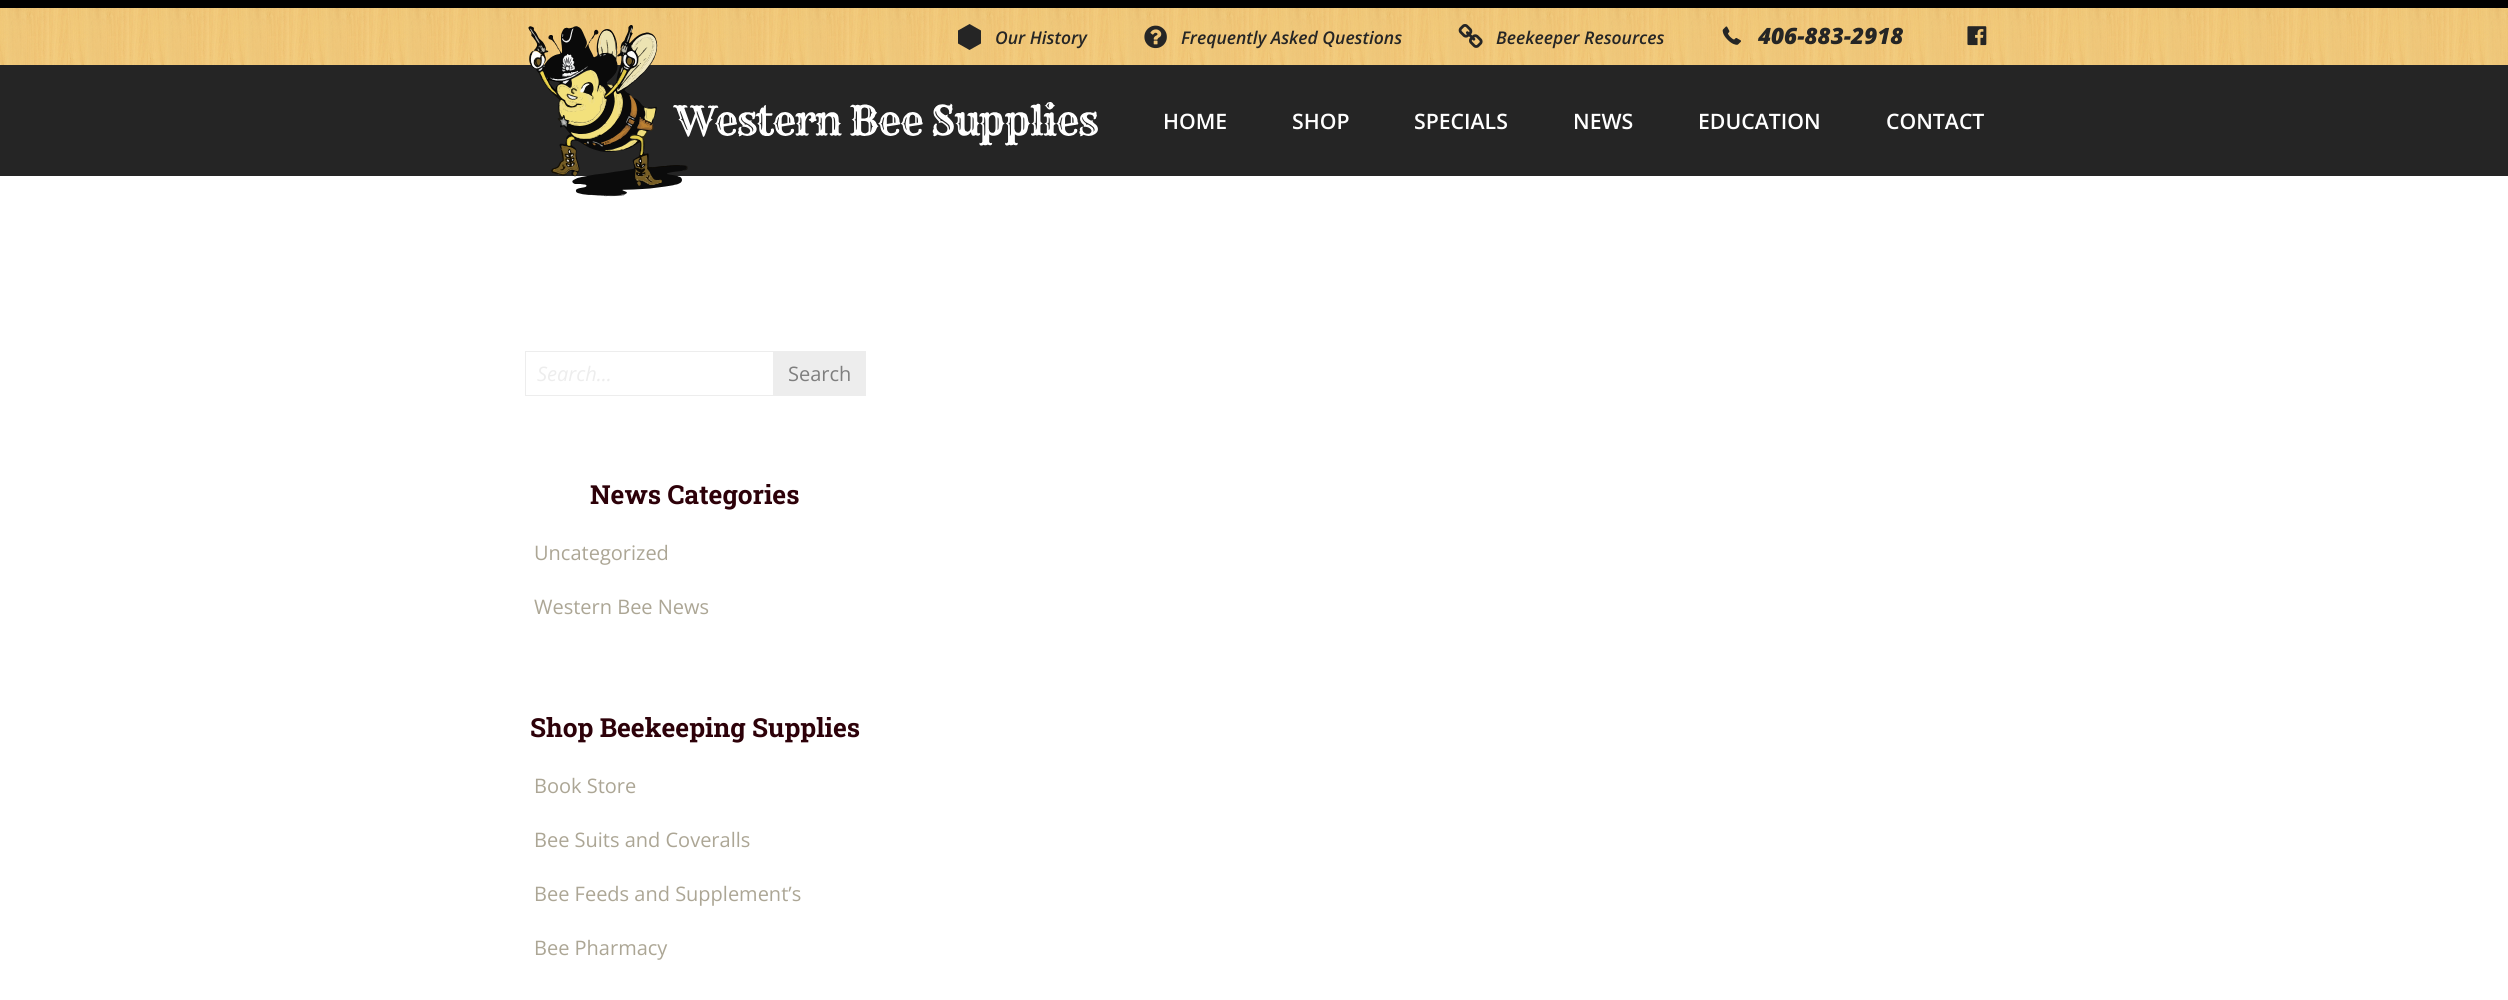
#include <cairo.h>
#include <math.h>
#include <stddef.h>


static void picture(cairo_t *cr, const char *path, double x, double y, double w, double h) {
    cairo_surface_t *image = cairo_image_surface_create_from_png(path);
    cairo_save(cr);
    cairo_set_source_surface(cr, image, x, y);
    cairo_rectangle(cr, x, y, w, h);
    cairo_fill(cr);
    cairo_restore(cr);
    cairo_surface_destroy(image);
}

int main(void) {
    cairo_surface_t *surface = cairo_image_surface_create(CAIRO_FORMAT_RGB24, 2508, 1000);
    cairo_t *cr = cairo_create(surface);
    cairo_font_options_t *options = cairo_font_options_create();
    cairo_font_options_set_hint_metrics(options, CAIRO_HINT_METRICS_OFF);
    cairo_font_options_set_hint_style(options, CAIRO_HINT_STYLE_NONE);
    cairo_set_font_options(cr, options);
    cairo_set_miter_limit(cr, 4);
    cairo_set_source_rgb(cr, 1, 1, 1);
    cairo_paint(cr);
    cairo_set_source_rgb(cr, 0, 0, 0);
    cairo_rectangle(cr, 0, 0, 2508, 8);
    cairo_fill(cr);
    picture(cr, "img1.png", 0, 8, 2508, 57);
    cairo_set_source_rgb(cr, 0.145, 0.145, 0.145);
    cairo_rectangle(cr, 0, 65, 2508, 111);
    cairo_fill(cr);
    picture(cr, "img6.png", 528, 25, 570, 172);
    cairo_new_path(cr);
    cairo_move_to(cr, 981, 43.5);
    cairo_line_to(cr, 969.5, 50);
    cairo_line_to(cr, 958, 43.5);
    cairo_line_to(cr, 958, 30.5);
    cairo_line_to(cr, 969.5, 24);
    cairo_line_to(cr, 981, 30.5);
    cairo_close_path(cr);
    cairo_fill(cr);
    cairo_select_font_face(cr, "Open Sans SemiBold", CAIRO_FONT_SLANT_ITALIC, CAIRO_FONT_WEIGHT_NORMAL);
    cairo_set_font_size(cr, 17.5);
    cairo_move_to(cr, 995, 44);
    cairo_show_text(cr, "Our History");
    picture(cr, "img2.png", 1144, 25, 23, 24);
    cairo_move_to(cr, 1181, 44);
    cairo_show_text(cr, "Frequently Asked Questions");
    picture(cr, "img3.png", 1458, 24, 25, 24);
    cairo_move_to(cr, 1496, 44);
    cairo_show_text(cr, "Beekeeper Resources");
    picture(cr, "img4.png", 1722, 26, 19, 19);
    cairo_select_font_face(cr, "Open Sans ExtraBold", CAIRO_FONT_SLANT_ITALIC, CAIRO_FONT_WEIGHT_NORMAL);
    cairo_set_font_size(cr, 22.5);
    cairo_move_to(cr, 1758, 44);
    cairo_show_text(cr, "406-883-2918");
    picture(cr, "img5.png", 1967, 26, 20, 20);
    cairo_select_font_face(cr, "Open Sans SemiBold", CAIRO_FONT_SLANT_NORMAL, CAIRO_FONT_WEIGHT_NORMAL);
    cairo_set_font_size(cr, 21.25);
    cairo_set_source_rgb(cr, 1, 1, 1);
    cairo_move_to(cr, 1163, 129);
    cairo_show_text(cr, "HOME");
    cairo_move_to(cr, 1292, 129);
    cairo_show_text(cr, "SHOP");
    cairo_move_to(cr, 1414, 129);
    cairo_show_text(cr, "SPECIALS");
    cairo_move_to(cr, 1573, 129);
    cairo_show_text(cr, "NEWS");
    cairo_move_to(cr, 1698, 129);
    cairo_show_text(cr, "EDUCATION");
    cairo_move_to(cr, 1886, 129);
    cairo_show_text(cr, "CONTACT");
    cairo_set_source_rgb(cr, 0.929, 0.929, 0.929);
    cairo_rectangle(cr, 525, 351, 248, 1);
    cairo_fill(cr);
    cairo_rectangle(cr, 525, 395, 248, 1);
    cairo_fill(cr);
    cairo_rectangle(cr, 525, 351, 1, 45);
    cairo_fill(cr);
    cairo_select_font_face(cr, "Open Sans", CAIRO_FONT_SLANT_ITALIC, CAIRO_FONT_WEIGHT_NORMAL);
    cairo_set_font_size(cr, 20);
    cairo_move_to(cr, 537, 381);
    cairo_show_text(cr, "Search...");
    cairo_rectangle(cr, 773, 351, 93, 45);
    cairo_fill(cr);
    cairo_select_font_face(cr, "Open Sans", CAIRO_FONT_SLANT_NORMAL, CAIRO_FONT_WEIGHT_NORMAL);
    cairo_set_source_rgb(cr, 0.494, 0.494, 0.494);
    cairo_move_to(cr, 788, 381);
    cairo_show_text(cr, "Search");
    cairo_select_font_face(cr, "Roboto Slab", CAIRO_FONT_SLANT_NORMAL, CAIRO_FONT_WEIGHT_BOLD);
    cairo_set_font_size(cr, 26.25);
    cairo_set_source_rgb(cr, 0.176, 0.004, 0.039);
    cairo_move_to(cr, 590, 504);
    cairo_show_text(cr, "News Categories");
    cairo_select_font_face(cr, "Open Sans", CAIRO_FONT_SLANT_NORMAL, CAIRO_FONT_WEIGHT_NORMAL);
    cairo_set_font_size(cr, 20);
    cairo_set_source_rgb(cr, 0.675, 0.651, 0.584);
    cairo_move_to(cr, 534, 560);
    cairo_show_text(cr, "Uncategorized");
    cairo_move_to(cr, 534, 614);
    cairo_show_text(cr, "Western Bee News");
    cairo_select_font_face(cr, "Roboto Slab", CAIRO_FONT_SLANT_NORMAL, CAIRO_FONT_WEIGHT_BOLD);
    cairo_set_font_size(cr, 26.25);
    cairo_set_source_rgb(cr, 0.176, 0.004, 0.039);
    cairo_move_to(cr, 530, 737);
    cairo_show_text(cr, "Shop Beekeeping Supplies");
    cairo_select_font_face(cr, "Open Sans", CAIRO_FONT_SLANT_NORMAL, CAIRO_FONT_WEIGHT_NORMAL);
    cairo_set_font_size(cr, 20);
    cairo_set_source_rgb(cr, 0.675, 0.651, 0.584);
    cairo_move_to(cr, 534, 793);
    cairo_show_text(cr, "Book Store");
    cairo_move_to(cr, 534, 847);
    cairo_show_text(cr, "Bee Suits and Coveralls");
    cairo_move_to(cr, 534, 901);
    cairo_show_text(cr, "Bee Feeds and Supplement’s");
    cairo_move_to(cr, 534, 955);
    cairo_show_text(cr, "Bee Pharmacy");
    cairo_surface_write_to_png(surface, "page.png");
    cairo_font_options_destroy(options);
    cairo_destroy(cr);
    cairo_surface_destroy(surface);
    return 0;
}
